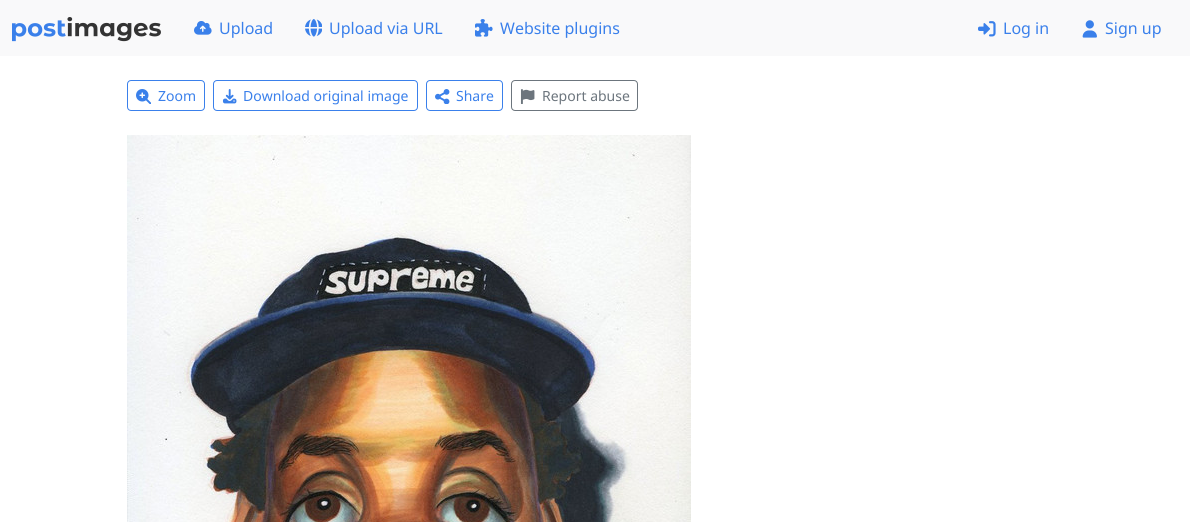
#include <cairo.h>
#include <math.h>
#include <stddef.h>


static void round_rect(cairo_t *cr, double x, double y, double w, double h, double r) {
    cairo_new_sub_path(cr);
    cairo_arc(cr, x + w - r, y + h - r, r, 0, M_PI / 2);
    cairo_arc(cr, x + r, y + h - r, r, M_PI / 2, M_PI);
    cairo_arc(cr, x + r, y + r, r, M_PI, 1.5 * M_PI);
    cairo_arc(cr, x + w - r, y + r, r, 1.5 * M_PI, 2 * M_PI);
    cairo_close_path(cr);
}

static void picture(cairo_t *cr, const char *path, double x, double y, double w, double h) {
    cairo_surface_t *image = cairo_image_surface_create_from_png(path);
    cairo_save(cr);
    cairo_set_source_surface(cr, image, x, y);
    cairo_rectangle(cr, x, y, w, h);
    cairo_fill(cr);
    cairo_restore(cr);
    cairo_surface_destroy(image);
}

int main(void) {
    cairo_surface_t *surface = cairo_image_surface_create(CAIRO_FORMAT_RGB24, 1190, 522);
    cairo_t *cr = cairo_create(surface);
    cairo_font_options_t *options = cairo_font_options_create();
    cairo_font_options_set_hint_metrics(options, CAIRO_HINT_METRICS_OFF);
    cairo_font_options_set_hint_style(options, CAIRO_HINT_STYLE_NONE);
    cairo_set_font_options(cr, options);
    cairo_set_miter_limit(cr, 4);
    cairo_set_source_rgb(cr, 1, 1, 1);
    cairo_paint(cr);
    cairo_set_source_rgb(cr, 0.973, 0.976, 0.98);
    cairo_rectangle(cr, 0, 0, 1190, 56);
    cairo_fill(cr);
    picture(cr, "img1.png", 12, 17, 149, 25);
    picture(cr, "img2.png", 194, 21, 18, 14);
    cairo_select_font_face(cr, "Noto Sans", CAIRO_FONT_SLANT_NORMAL, CAIRO_FONT_WEIGHT_NORMAL);
    cairo_set_font_size(cr, 16);
    cairo_set_source_rgb(cr, 0.227, 0.502, 0.918);
    cairo_move_to(cr, 219, 34);
    cairo_show_text(cr, "Upload");
    picture(cr, "img3.png", 305, 19, 17, 18);
    cairo_move_to(cr, 329, 34);
    cairo_show_text(cr, "Upload via URL");
    picture(cr, "img4.png", 475, 19, 18, 18);
    cairo_move_to(cr, 500, 34);
    cairo_show_text(cr, "Website plugins");
    picture(cr, "img5.png", 978, 21, 18, 16);
    cairo_move_to(cr, 1003, 34);
    cairo_show_text(cr, "Log in");
    picture(cr, "img6.png", 1082, 20, 15, 18);
    cairo_move_to(cr, 1105, 34);
    cairo_show_text(cr, "Sign up");
    round_rect(cr, 127.5, 80.5, 77, 30, 3.5);
    cairo_set_line_width(cr, 1);
    cairo_stroke(cr);
    picture(cr, "img7.png", 136, 89, 15, 15);
    cairo_set_font_size(cr, 14);
    cairo_move_to(cr, 158, 101);
    cairo_show_text(cr, "Zoom");
    round_rect(cr, 213.5, 80.5, 204, 30, 3.5);
    cairo_stroke(cr);
    picture(cr, "img8.png", 222, 89, 15, 15);
    cairo_move_to(cr, 243, 101);
    cairo_show_text(cr, "Download original image");
    round_rect(cr, 426.5, 80.5, 76, 30, 3.5);
    cairo_stroke(cr);
    picture(cr, "img9.png", 435, 89, 15, 15);
    cairo_move_to(cr, 456, 101);
    cairo_show_text(cr, "Share");
    round_rect(cr, 511.5, 80.5, 126, 30, 3.5);
    cairo_set_source_rgb(cr, 0.424, 0.459, 0.49);
    cairo_stroke(cr);
    picture(cr, "img10.png", 520, 89, 15, 15);
    cairo_move_to(cr, 542, 101);
    cairo_show_text(cr, "Report abuse");
    picture(cr, "img11.png", 127, 135, 564, 387);
    cairo_surface_write_to_png(surface, "page.png");
    cairo_font_options_destroy(options);
    cairo_destroy(cr);
    cairo_surface_destroy(surface);
    return 0;
}
